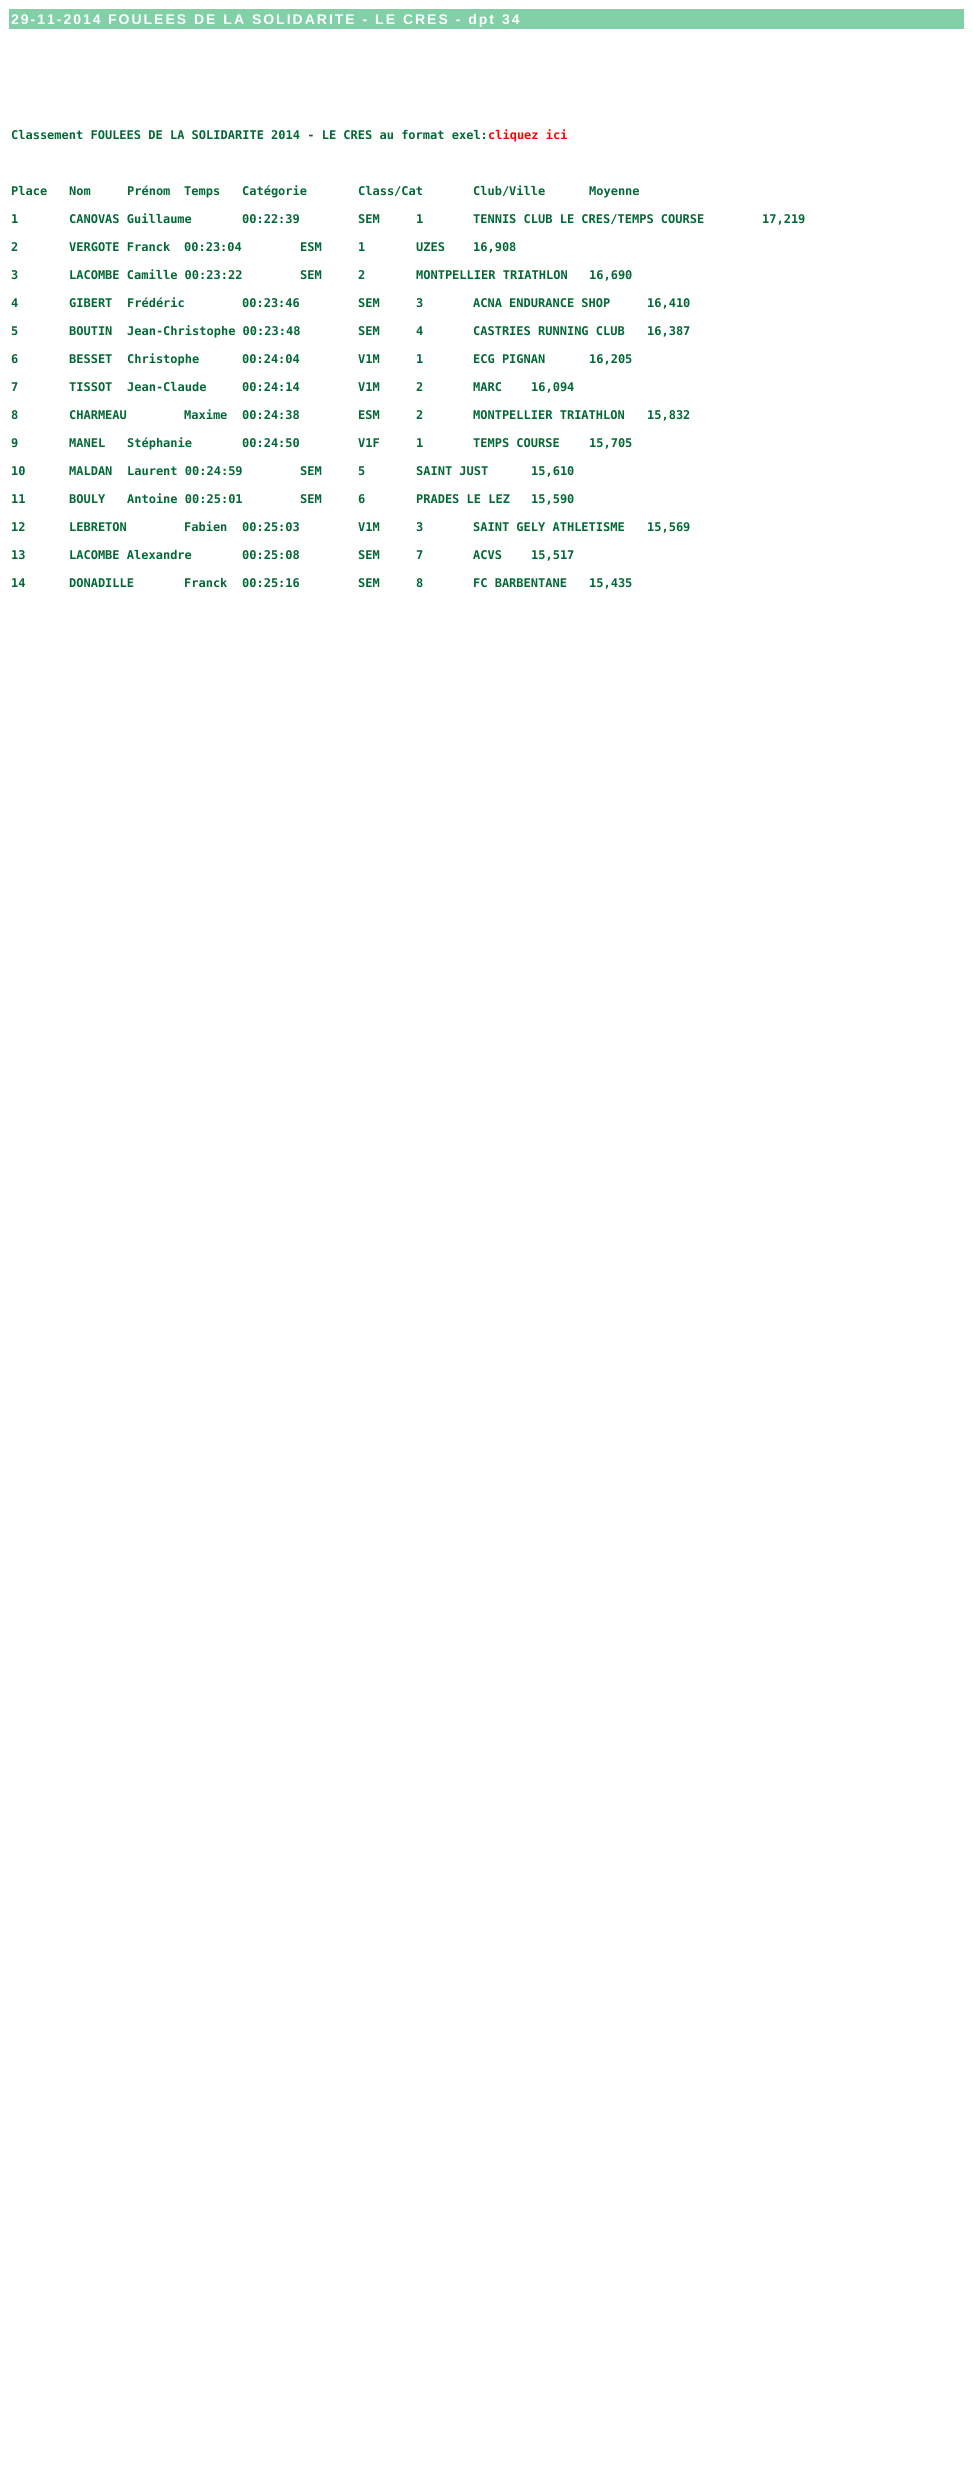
#include <cairo.h>
#include <math.h>
#include <stddef.h>


static void spaced_text(cairo_t *cr, double x, double y, const char *s, double letter, double word) {
    cairo_move_to(cr, x, y);
    while (*s) {
        char ch[5] = {0};
        int n = 0;
        do ch[n++] = *s++; while ((*s & 0xC0) == 0x80);
        cairo_show_text(cr, ch);
        cairo_rel_move_to(cr, letter + word * (*ch == ' '), 0);
    }
}

int main(void) {
    cairo_surface_t *surface = cairo_image_surface_create(CAIRO_FORMAT_RGB24, 973, 2471);
    cairo_t *cr = cairo_create(surface);
    cairo_font_options_t *options = cairo_font_options_create();
    cairo_font_options_set_hint_metrics(options, CAIRO_HINT_METRICS_OFF);
    cairo_font_options_set_hint_style(options, CAIRO_HINT_STYLE_NONE);
    cairo_set_font_options(cr, options);
    cairo_set_miter_limit(cr, 4);
    cairo_set_source_rgb(cr, 1, 1, 1);
    cairo_paint(cr);
    cairo_set_source_rgb(cr, 0.514, 0.812, 0.655);
    cairo_rectangle(cr, 9, 9, 955, 20);
    cairo_fill(cr);
    cairo_select_font_face(cr, "Liberation Sans", CAIRO_FONT_SLANT_NORMAL, CAIRO_FONT_WEIGHT_BOLD);
    cairo_set_font_size(cr, 14);
    cairo_set_source_rgb(cr, 1, 1, 1);
    spaced_text(cr, 11, 24, "29-11-2014", 2, 0);
    spaced_text(cr, 108, 24, "FOULEES DE LA SOLIDARITE - LE CRES - dpt 34", 2, 0);
    cairo_select_font_face(cr, "DejaVu Sans Mono", CAIRO_FONT_SLANT_NORMAL, CAIRO_FONT_WEIGHT_BOLD);
    cairo_set_font_size(cr, 12);
    cairo_set_source_rgb(cr, 0.008, 0.408, 0.212);
    cairo_move_to(cr, 11, 139);
    cairo_show_text(cr, "Classement FOULEES DE LA SOLIDARITE 2014 - LE CRES au format exel:");
    cairo_set_source_rgb(cr, 1, 0, 0);
    cairo_move_to(cr, 488, 139);
    cairo_show_text(cr, "cliquez ici");
    cairo_set_source_rgb(cr, 0.008, 0.408, 0.212);
    cairo_move_to(cr, 11, 195);
    cairo_show_text(cr, "Place");
    cairo_move_to(cr, 69, 195);
    cairo_show_text(cr, "Nom");
    cairo_move_to(cr, 127, 195);
    cairo_show_text(cr, "Prénom");
    cairo_move_to(cr, 184, 195);
    cairo_show_text(cr, "Temps");
    cairo_move_to(cr, 242, 195);
    cairo_show_text(cr, "Catégorie");
    cairo_move_to(cr, 358, 195);
    cairo_show_text(cr, "Class/Cat");
    cairo_move_to(cr, 473, 195);
    cairo_show_text(cr, "Club/Ville");
    cairo_move_to(cr, 589, 195);
    cairo_show_text(cr, "Moyenne");
    cairo_move_to(cr, 11, 223);
    cairo_show_text(cr, "1");
    cairo_move_to(cr, 69, 223);
    cairo_show_text(cr, "CANOVAS Guillaume");
    cairo_move_to(cr, 242, 223);
    cairo_show_text(cr, "00:22:39");
    cairo_move_to(cr, 358, 223);
    cairo_show_text(cr, "SEM");
    cairo_move_to(cr, 416, 223);
    cairo_show_text(cr, "1");
    cairo_move_to(cr, 473, 223);
    cairo_show_text(cr, "TENNIS CLUB LE CRES/TEMPS COURSE");
    cairo_move_to(cr, 762, 223);
    cairo_show_text(cr, "17,219");
    cairo_move_to(cr, 11, 251);
    cairo_show_text(cr, "2");
    cairo_move_to(cr, 69, 251);
    cairo_show_text(cr, "VERGOTE Franck");
    cairo_move_to(cr, 184, 251);
    cairo_show_text(cr, "00:23:04");
    cairo_move_to(cr, 300, 251);
    cairo_show_text(cr, "ESM");
    cairo_move_to(cr, 358, 251);
    cairo_show_text(cr, "1");
    cairo_move_to(cr, 416, 251);
    cairo_show_text(cr, "UZES");
    cairo_move_to(cr, 473, 251);
    cairo_show_text(cr, "16,908");
    cairo_move_to(cr, 11, 279);
    cairo_show_text(cr, "3");
    cairo_move_to(cr, 69, 279);
    cairo_show_text(cr, "LACOMBE Camille 00:23:22");
    cairo_move_to(cr, 300, 279);
    cairo_show_text(cr, "SEM");
    cairo_move_to(cr, 358, 279);
    cairo_show_text(cr, "2");
    cairo_move_to(cr, 416, 279);
    cairo_show_text(cr, "MONTPELLIER TRIATHLON");
    cairo_move_to(cr, 589, 279);
    cairo_show_text(cr, "16,690");
    cairo_move_to(cr, 11, 307);
    cairo_show_text(cr, "4");
    cairo_move_to(cr, 69, 307);
    cairo_show_text(cr, "GIBERT");
    cairo_move_to(cr, 127, 307);
    cairo_show_text(cr, "Frédéric");
    cairo_move_to(cr, 242, 307);
    cairo_show_text(cr, "00:23:46");
    cairo_move_to(cr, 358, 307);
    cairo_show_text(cr, "SEM");
    cairo_move_to(cr, 416, 307);
    cairo_show_text(cr, "3");
    cairo_move_to(cr, 473, 307);
    cairo_show_text(cr, "ACNA ENDURANCE SHOP");
    cairo_move_to(cr, 647, 307);
    cairo_show_text(cr, "16,410");
    cairo_move_to(cr, 11, 335);
    cairo_show_text(cr, "5");
    cairo_move_to(cr, 69, 335);
    cairo_show_text(cr, "BOUTIN");
    cairo_move_to(cr, 127, 335);
    cairo_show_text(cr, "Jean-Christophe 00:23:48");
    cairo_move_to(cr, 358, 335);
    cairo_show_text(cr, "SEM");
    cairo_move_to(cr, 416, 335);
    cairo_show_text(cr, "4");
    cairo_move_to(cr, 473, 335);
    cairo_show_text(cr, "CASTRIES RUNNING CLUB");
    cairo_move_to(cr, 647, 335);
    cairo_show_text(cr, "16,387");
    cairo_move_to(cr, 11, 363);
    cairo_show_text(cr, "6");
    cairo_move_to(cr, 69, 363);
    cairo_show_text(cr, "BESSET");
    cairo_move_to(cr, 127, 363);
    cairo_show_text(cr, "Christophe");
    cairo_move_to(cr, 242, 363);
    cairo_show_text(cr, "00:24:04");
    cairo_move_to(cr, 358, 363);
    cairo_show_text(cr, "V1M");
    cairo_move_to(cr, 416, 363);
    cairo_show_text(cr, "1");
    cairo_move_to(cr, 473, 363);
    cairo_show_text(cr, "ECG PIGNAN");
    cairo_move_to(cr, 589, 363);
    cairo_show_text(cr, "16,205");
    cairo_move_to(cr, 11, 391);
    cairo_show_text(cr, "7");
    cairo_move_to(cr, 69, 391);
    cairo_show_text(cr, "TISSOT");
    cairo_move_to(cr, 127, 391);
    cairo_show_text(cr, "Jean-Claude");
    cairo_move_to(cr, 242, 391);
    cairo_show_text(cr, "00:24:14");
    cairo_move_to(cr, 358, 391);
    cairo_show_text(cr, "V1M");
    cairo_move_to(cr, 416, 391);
    cairo_show_text(cr, "2");
    cairo_move_to(cr, 473, 391);
    cairo_show_text(cr, "MARC");
    cairo_move_to(cr, 531, 391);
    cairo_show_text(cr, "16,094");
    cairo_move_to(cr, 11, 419);
    cairo_show_text(cr, "8");
    cairo_move_to(cr, 69, 419);
    cairo_show_text(cr, "CHARMEAU");
    cairo_move_to(cr, 184, 419);
    cairo_show_text(cr, "Maxime");
    cairo_move_to(cr, 242, 419);
    cairo_show_text(cr, "00:24:38");
    cairo_move_to(cr, 358, 419);
    cairo_show_text(cr, "ESM");
    cairo_move_to(cr, 416, 419);
    cairo_show_text(cr, "2");
    cairo_move_to(cr, 473, 419);
    cairo_show_text(cr, "MONTPELLIER TRIATHLON");
    cairo_move_to(cr, 647, 419);
    cairo_show_text(cr, "15,832");
    cairo_move_to(cr, 11, 447);
    cairo_show_text(cr, "9");
    cairo_move_to(cr, 69, 447);
    cairo_show_text(cr, "MANEL");
    cairo_move_to(cr, 127, 447);
    cairo_show_text(cr, "Stéphanie");
    cairo_move_to(cr, 242, 447);
    cairo_show_text(cr, "00:24:50");
    cairo_move_to(cr, 358, 447);
    cairo_show_text(cr, "V1F");
    cairo_move_to(cr, 416, 447);
    cairo_show_text(cr, "1");
    cairo_move_to(cr, 473, 447);
    cairo_show_text(cr, "TEMPS COURSE");
    cairo_move_to(cr, 589, 447);
    cairo_show_text(cr, "15,705");
    cairo_move_to(cr, 11, 475);
    cairo_show_text(cr, "10");
    cairo_move_to(cr, 69, 475);
    cairo_show_text(cr, "MALDAN");
    cairo_move_to(cr, 127, 475);
    cairo_show_text(cr, "Laurent 00:24:59");
    cairo_move_to(cr, 300, 475);
    cairo_show_text(cr, "SEM");
    cairo_move_to(cr, 358, 475);
    cairo_show_text(cr, "5");
    cairo_move_to(cr, 416, 475);
    cairo_show_text(cr, "SAINT JUST");
    cairo_move_to(cr, 531, 475);
    cairo_show_text(cr, "15,610");
    cairo_move_to(cr, 11, 503);
    cairo_show_text(cr, "11");
    cairo_move_to(cr, 69, 503);
    cairo_show_text(cr, "BOULY");
    cairo_move_to(cr, 127, 503);
    cairo_show_text(cr, "Antoine 00:25:01");
    cairo_move_to(cr, 300, 503);
    cairo_show_text(cr, "SEM");
    cairo_move_to(cr, 358, 503);
    cairo_show_text(cr, "6");
    cairo_move_to(cr, 416, 503);
    cairo_show_text(cr, "PRADES LE LEZ");
    cairo_move_to(cr, 531, 503);
    cairo_show_text(cr, "15,590");
    cairo_move_to(cr, 11, 531);
    cairo_show_text(cr, "12");
    cairo_move_to(cr, 69, 531);
    cairo_show_text(cr, "LEBRETON");
    cairo_move_to(cr, 184, 531);
    cairo_show_text(cr, "Fabien");
    cairo_move_to(cr, 242, 531);
    cairo_show_text(cr, "00:25:03");
    cairo_move_to(cr, 358, 531);
    cairo_show_text(cr, "V1M");
    cairo_move_to(cr, 416, 531);
    cairo_show_text(cr, "3");
    cairo_move_to(cr, 473, 531);
    cairo_show_text(cr, "SAINT GELY ATHLETISME");
    cairo_move_to(cr, 647, 531);
    cairo_show_text(cr, "15,569");
    cairo_move_to(cr, 11, 559);
    cairo_show_text(cr, "13");
    cairo_move_to(cr, 69, 559);
    cairo_show_text(cr, "LACOMBE Alexandre");
    cairo_move_to(cr, 242, 559);
    cairo_show_text(cr, "00:25:08");
    cairo_move_to(cr, 358, 559);
    cairo_show_text(cr, "SEM");
    cairo_move_to(cr, 416, 559);
    cairo_show_text(cr, "7");
    cairo_move_to(cr, 473, 559);
    cairo_show_text(cr, "ACVS");
    cairo_move_to(cr, 531, 559);
    cairo_show_text(cr, "15,517");
    cairo_move_to(cr, 11, 587);
    cairo_show_text(cr, "14");
    cairo_move_to(cr, 69, 587);
    cairo_show_text(cr, "DONADILLE");
    cairo_move_to(cr, 184, 587);
    cairo_show_text(cr, "Franck");
    cairo_move_to(cr, 242, 587);
    cairo_show_text(cr, "00:25:16");
    cairo_move_to(cr, 358, 587);
    cairo_show_text(cr, "SEM");
    cairo_move_to(cr, 416, 587);
    cairo_show_text(cr, "8");
    cairo_move_to(cr, 473, 587);
    cairo_show_text(cr, "FC BARBENTANE");
    cairo_move_to(cr, 589, 587);
    cairo_show_text(cr, "15,435");
    cairo_surface_write_to_png(surface, "page.png");
    cairo_font_options_destroy(options);
    cairo_destroy(cr);
    cairo_surface_destroy(surface);
    return 0;
}
